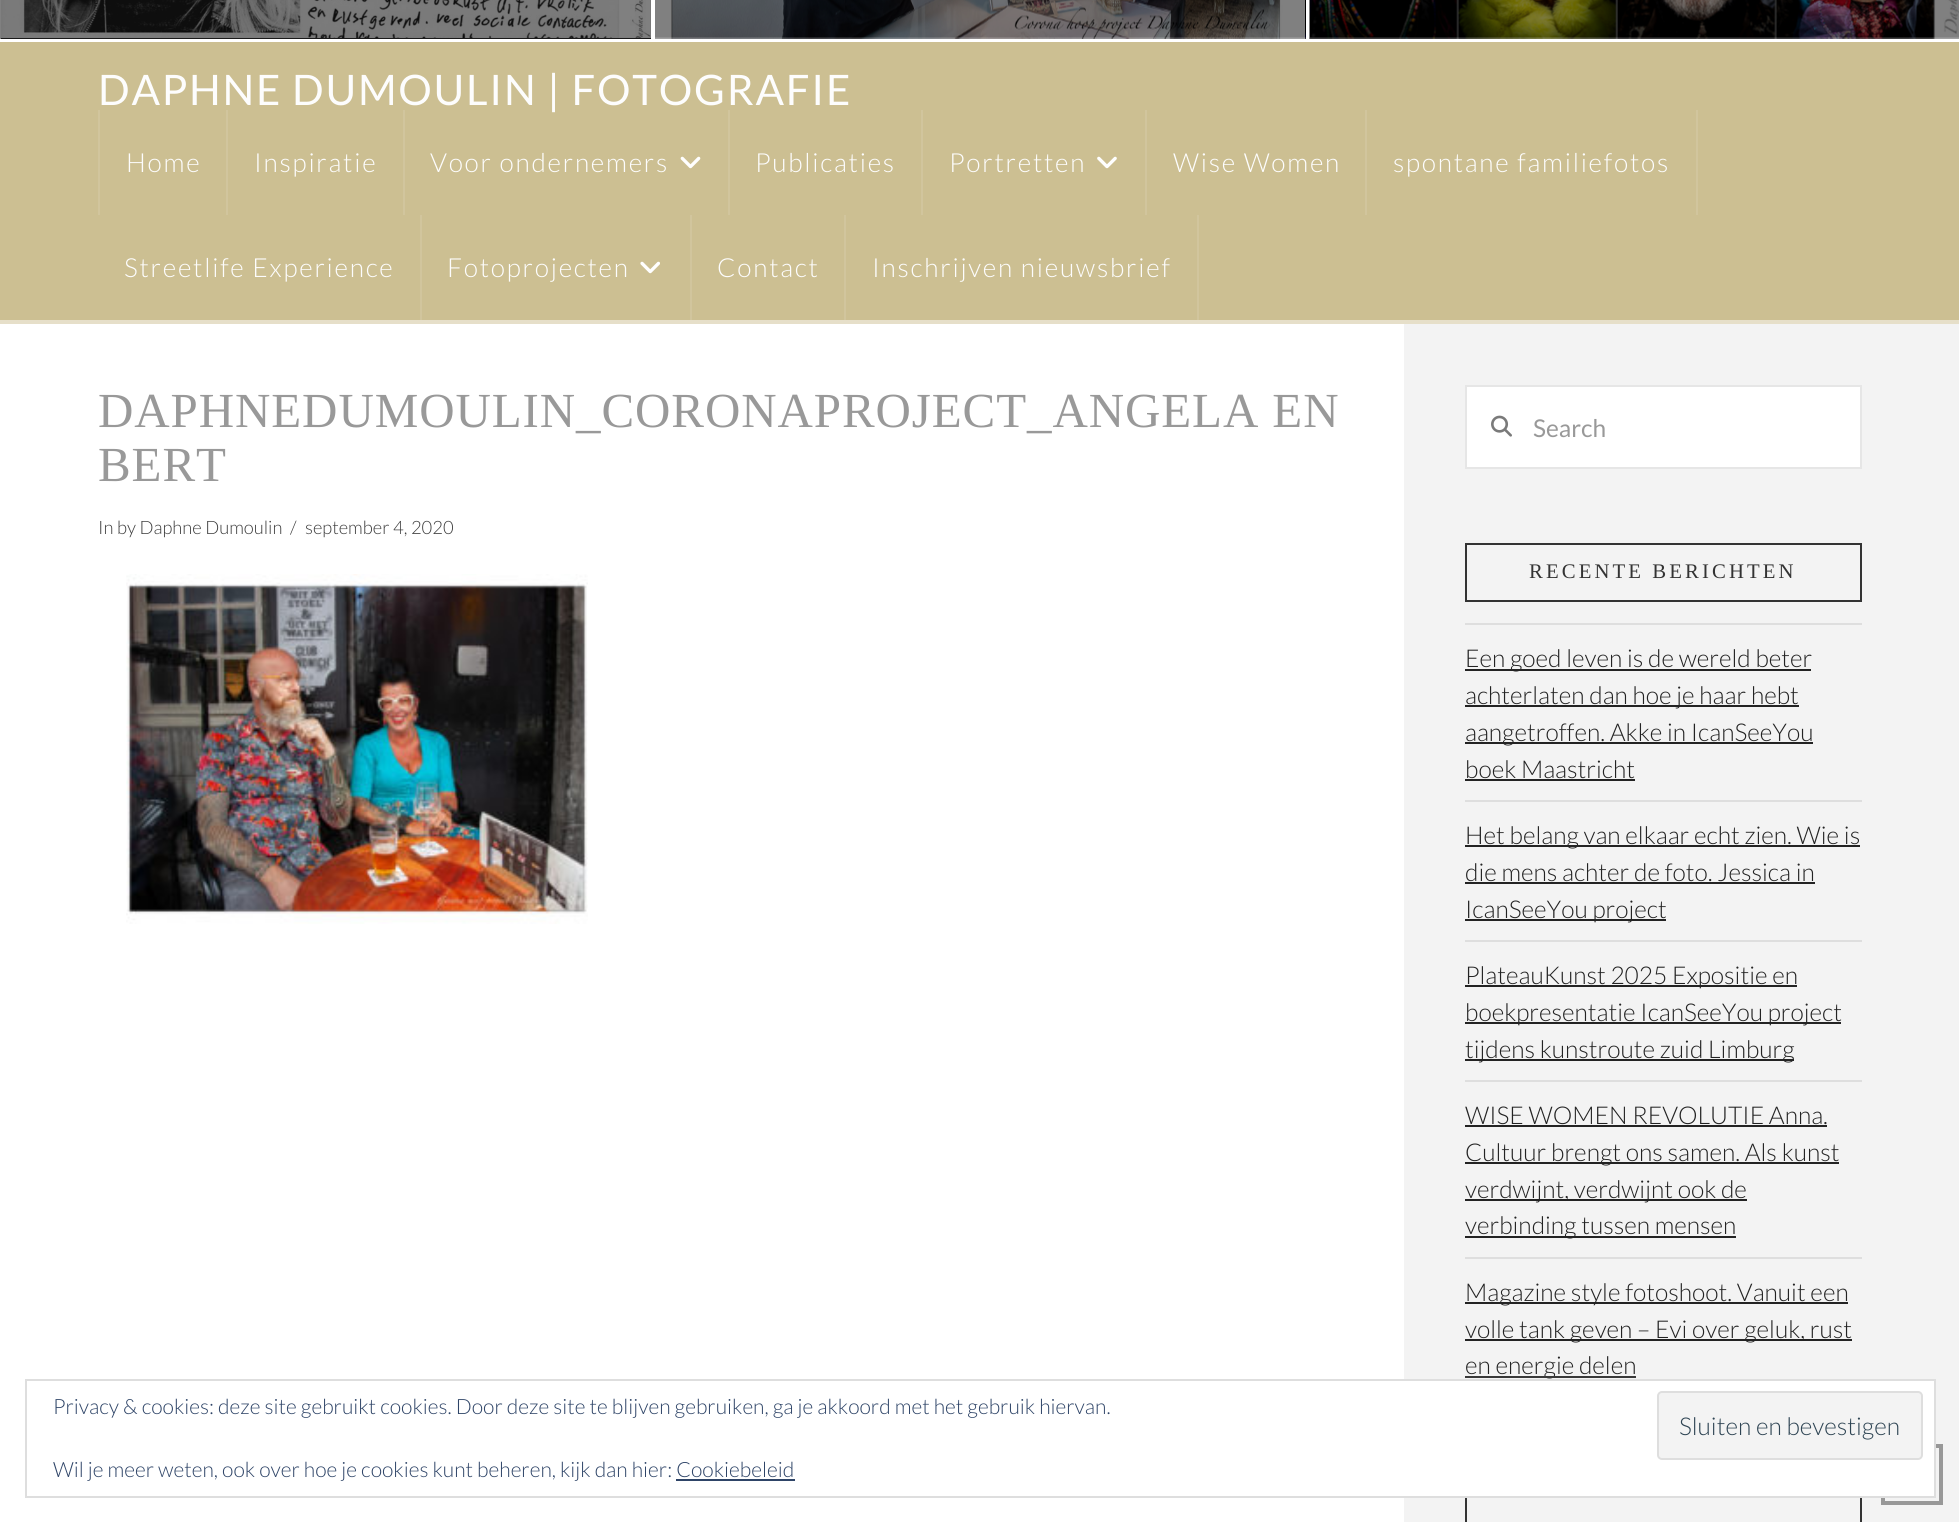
#include <cairo.h>
#include <math.h>
#include <stddef.h>


static void spaced_text(cairo_t *cr, double x, double y, const char *s, double letter, double word) {
    cairo_move_to(cr, x, y);
    while (*s) {
        char ch[5] = {0};
        int n = 0;
        do ch[n++] = *s++; while ((*s & 0xC0) == 0x80);
        cairo_show_text(cr, ch);
        cairo_rel_move_to(cr, letter + word * (*ch == ' '), 0);
    }
}

static void round_rect(cairo_t *cr, double x, double y, double w, double h, double r) {
    cairo_new_sub_path(cr);
    cairo_arc(cr, x + w - r, y + h - r, r, 0, M_PI / 2);
    cairo_arc(cr, x + r, y + h - r, r, M_PI / 2, M_PI);
    cairo_arc(cr, x + r, y + r, r, M_PI, 1.5 * M_PI);
    cairo_arc(cr, x + w - r, y + r, r, 1.5 * M_PI, 2 * M_PI);
    cairo_close_path(cr);
}

static void picture(cairo_t *cr, const char *path, double x, double y, double w, double h) {
    cairo_surface_t *image = cairo_image_surface_create_from_png(path);
    cairo_save(cr);
    cairo_set_source_surface(cr, image, x, y);
    cairo_rectangle(cr, x, y, w, h);
    cairo_fill(cr);
    cairo_restore(cr);
    cairo_surface_destroy(image);
}

int main(void) {
    cairo_surface_t *surface = cairo_image_surface_create(CAIRO_FORMAT_RGB24, 1959, 1522);
    cairo_t *cr = cairo_create(surface);
    cairo_font_options_t *options = cairo_font_options_create();
    cairo_font_options_set_hint_metrics(options, CAIRO_HINT_METRICS_OFF);
    cairo_font_options_set_hint_style(options, CAIRO_HINT_STYLE_NONE);
    cairo_set_font_options(cr, options);
    cairo_set_miter_limit(cr, 4);
    cairo_set_source_rgb(cr, 0.953, 0.953, 0.953);
    cairo_paint(cr);
    cairo_set_source_rgb(cr, 1, 1, 1);
    cairo_rectangle(cr, 0, 37, 1959, 5);
    cairo_fill(cr);
    cairo_set_source_rgb(cr, 0.102, 0.102, 0.102);
    cairo_rectangle(cr, 1, 0, 650, 39);
    cairo_fill(cr);
    picture(cr, "img1.png", 1, 0, 650, 38);
    cairo_set_source_rgb(cr, 0.502, 0.502, 0.502);
    cairo_rectangle(cr, 0, 0, 1, 39);
    cairo_fill(cr);
    picture(cr, "img2.png", 655, 0, 651, 39);
    cairo_set_source_rgb(cr, 1, 1, 1);
    cairo_rectangle(cr, 651, 0, 4, 39);
    cairo_fill(cr);
    picture(cr, "img3.png", 1305, 0, 654, 39);
    cairo_rectangle(cr, 1306, 0, 3, 39);
    cairo_fill(cr);
    cairo_set_source_rgb(cr, 0.502, 0.502, 0.502);
    cairo_rectangle(cr, 1309, 0, 1, 39);
    cairo_fill(cr);
    cairo_set_source_rgb(cr, 0.8, 0.749, 0.573);
    cairo_rectangle(cr, 0, 42, 1959, 278);
    cairo_fill(cr);
    cairo_set_source_rgb(cr, 0.902, 0.875, 0.788);
    cairo_rectangle(cr, 0, 320, 1959, 4);
    cairo_fill(cr);
    cairo_select_font_face(cr, "Lato", CAIRO_FONT_SLANT_NORMAL, CAIRO_FONT_WEIGHT_NORMAL);
    cairo_set_font_size(cr, 42);
    cairo_set_source_rgb(cr, 0.992, 0.992, 0.992);
    spaced_text(cr, 98, 105, "DAPHNE DUMOULIN | FOTOGRAFIE", 1.75, 0);
    cairo_set_source_rgb(cr, 0.82, 0.773, 0.616);
    cairo_rectangle(cr, 226, 110, 2, 105);
    cairo_fill(cr);
    cairo_rectangle(cr, 98, 110, 2, 105);
    cairo_fill(cr);
    cairo_select_font_face(cr, "Lato Light", CAIRO_FONT_SLANT_NORMAL, CAIRO_FONT_WEIGHT_NORMAL);
    cairo_set_font_size(cr, 26.25);
    cairo_set_source_rgb(cr, 0.992, 0.992, 0.992);
    spaced_text(cr, 126, 172, "Home", 1.75, 0);
    cairo_set_source_rgb(cr, 0.82, 0.773, 0.616);
    cairo_rectangle(cr, 403, 110, 2, 105);
    cairo_fill(cr);
    cairo_set_source_rgb(cr, 0.992, 0.992, 0.992);
    spaced_text(cr, 254, 172, "Inspiratie", 1.75, 0);
    cairo_set_source_rgb(cr, 0.82, 0.773, 0.616);
    cairo_rectangle(cr, 728, 110, 2, 105);
    cairo_fill(cr);
    cairo_set_source_rgb(cr, 0.992, 0.992, 0.992);
    spaced_text(cr, 430, 172, "Voor ondernemers", 1.75, 0);
    picture(cr, "img4.png", 680, 156, 21, 13);
    cairo_set_source_rgb(cr, 0.82, 0.773, 0.616);
    cairo_rectangle(cr, 921, 110, 2, 105);
    cairo_fill(cr);
    cairo_set_source_rgb(cr, 0.992, 0.992, 0.992);
    spaced_text(cr, 755, 172, "Publicaties", 1.75, 0);
    cairo_set_source_rgb(cr, 0.82, 0.773, 0.616);
    cairo_rectangle(cr, 1145, 110, 2, 105);
    cairo_fill(cr);
    cairo_set_source_rgb(cr, 0.992, 0.992, 0.992);
    spaced_text(cr, 949, 172, "Portretten", 1.75, 0);
    picture(cr, "img5.png", 1097, 156, 20, 13);
    cairo_set_source_rgb(cr, 0.82, 0.773, 0.616);
    cairo_rectangle(cr, 1365, 110, 2, 105);
    cairo_fill(cr);
    cairo_set_source_rgb(cr, 0.992, 0.992, 0.992);
    spaced_text(cr, 1173, 172, "Wise Women", 1.75, 0);
    cairo_set_source_rgb(cr, 0.82, 0.773, 0.616);
    cairo_rectangle(cr, 1696, 110, 2, 105);
    cairo_fill(cr);
    cairo_set_source_rgb(cr, 0.992, 0.992, 0.992);
    spaced_text(cr, 1393, 172, "spontane familiefotos", 1.75, 0);
    cairo_set_source_rgb(cr, 0.82, 0.773, 0.616);
    cairo_rectangle(cr, 420, 215, 2, 105);
    cairo_fill(cr);
    cairo_set_source_rgb(cr, 0.992, 0.992, 0.992);
    spaced_text(cr, 124, 277, "Streetlife Experience", 1.75, 0);
    cairo_set_source_rgb(cr, 0.82, 0.773, 0.616);
    cairo_rectangle(cr, 690, 215, 2, 105);
    cairo_fill(cr);
    cairo_set_source_rgb(cr, 0.992, 0.992, 0.992);
    spaced_text(cr, 447, 277, "Fotoprojecten", 1.75, 0);
    picture(cr, "img6.png", 640, 261, 20, 13);
    cairo_set_source_rgb(cr, 0.82, 0.773, 0.616);
    cairo_rectangle(cr, 844, 215, 2, 105);
    cairo_fill(cr);
    cairo_set_source_rgb(cr, 0.992, 0.992, 0.992);
    spaced_text(cr, 717, 277, "Contact", 1.75, 0);
    cairo_set_source_rgb(cr, 0.82, 0.773, 0.616);
    cairo_rectangle(cr, 1197, 215, 2, 105);
    cairo_fill(cr);
    cairo_set_source_rgb(cr, 0.992, 0.992, 0.992);
    spaced_text(cr, 872, 277, "Inschrijven nieuwsbrief", 1.75, 0);
    cairo_set_source_rgb(cr, 1, 1, 1);
    cairo_rectangle(cr, 0, 324, 1404, 1198);
    cairo_fill(cr);
    cairo_select_font_face(cr, "Liberation Serif", CAIRO_FONT_SLANT_NORMAL, CAIRO_FONT_WEIGHT_NORMAL);
    cairo_set_font_size(cr, 49);
    cairo_set_source_rgb(cr, 0.6, 0.6, 0.6);
    spaced_text(cr, 98, 427, "DAPHNEDUMOULIN_CORONAPROJECT_ANGELA EN", 0.9, 0);
    spaced_text(cr, 98, 481, "BERT", 0.9, 0);
    cairo_select_font_face(cr, "Lato Light", CAIRO_FONT_SLANT_NORMAL, CAIRO_FONT_WEIGHT_NORMAL);
    cairo_set_font_size(cr, 18.4);
    cairo_set_source_rgb(cr, 0.239, 0.239, 0.239);
    cairo_move_to(cr, 98, 534);
    cairo_show_text(cr, "In by Daphne Dumoulin");
    cairo_move_to(cr, 290, 534);
    cairo_show_text(cr, "/");
    cairo_move_to(cr, 305, 534);
    cairo_show_text(cr, "september 4, 2020");
    picture(cr, "img7.png", 126, 574, 462, 350);
    cairo_set_source_rgb(cr, 1, 1, 1);
    cairo_rectangle(cr, 1466, 386, 395, 82);
    cairo_fill_preserve(cr);
    cairo_set_source_rgb(cr, 0.902, 0.902, 0.902);
    cairo_stroke(cr);
    picture(cr, "img8.png", 1491, 415, 21, 22);
    cairo_select_font_face(cr, "Lato", CAIRO_FONT_SLANT_NORMAL, CAIRO_FONT_WEIGHT_NORMAL);
    cairo_set_font_size(cr, 24.5);
    cairo_set_source_rgb(cr, 0.6, 0.6, 0.6);
    cairo_move_to(cr, 1533, 437);
    cairo_show_text(cr, "Search");
    cairo_rectangle(cr, 1466, 544, 395, 57);
    cairo_set_source_rgb(cr, 0.2, 0.2, 0.2);
    cairo_stroke(cr);
    cairo_select_font_face(cr, "Liberation Serif", CAIRO_FONT_SLANT_NORMAL, CAIRO_FONT_WEIGHT_NORMAL);
    cairo_set_font_size(cr, 20.75);
    spaced_text(cr, 1529, 578, "RECENTE BERICHTEN", 3.1, 0);
    cairo_set_source_rgb(cr, 0.871, 0.871, 0.871);
    cairo_rectangle(cr, 1465, 623, 397, 2);
    cairo_fill(cr);
    cairo_set_source_rgb(cr, 0.137, 0.137, 0.137);
    cairo_rectangle(cr, 1465, 669, 346, 2);
    cairo_fill(cr);
    cairo_select_font_face(cr, "Lato Light", CAIRO_FONT_SLANT_NORMAL, CAIRO_FONT_WEIGHT_NORMAL);
    cairo_set_font_size(cr, 24.5);
    cairo_move_to(cr, 1465, 667);
    cairo_show_text(cr, "Een goed leven is de wereld beter");
    cairo_rectangle(cr, 1465, 705, 334, 2);
    cairo_fill(cr);
    cairo_move_to(cr, 1465, 704);
    cairo_show_text(cr, "achterlaten dan hoe je haar hebt");
    cairo_rectangle(cr, 1465, 742, 348, 2);
    cairo_fill(cr);
    cairo_move_to(cr, 1465, 741);
    cairo_show_text(cr, "aangetroffen. Akke in IcanSeeYou");
    cairo_move_to(cr, 1465, 778);
    cairo_show_text(cr, "boek Maastricht");
    cairo_rectangle(cr, 1465, 779, 170, 2);
    cairo_fill(cr);
    cairo_set_source_rgb(cr, 0.871, 0.871, 0.871);
    cairo_rectangle(cr, 1465, 800, 397, 2);
    cairo_fill(cr);
    cairo_set_source_rgb(cr, 0.137, 0.137, 0.137);
    cairo_rectangle(cr, 1465, 845, 395, 2);
    cairo_fill(cr);
    cairo_move_to(cr, 1465, 844);
    cairo_show_text(cr, "Het belang van elkaar echt zien. Wie is");
    cairo_move_to(cr, 1465, 881);
    cairo_show_text(cr, "die mens achter de foto. Jessica in");
    cairo_rectangle(cr, 1465, 882, 350, 2);
    cairo_fill(cr);
    cairo_rectangle(cr, 1465, 919, 201, 2);
    cairo_fill(cr);
    cairo_move_to(cr, 1465, 918);
    cairo_show_text(cr, "IcanSeeYou project");
    cairo_set_source_rgb(cr, 0.871, 0.871, 0.871);
    cairo_rectangle(cr, 1465, 940, 397, 2);
    cairo_fill(cr);
    cairo_set_source_rgb(cr, 0.137, 0.137, 0.137);
    cairo_rectangle(cr, 1465, 985, 332, 2);
    cairo_fill(cr);
    cairo_move_to(cr, 1465, 984);
    cairo_show_text(cr, "PlateauKunst 2025 Expositie en");
    cairo_rectangle(cr, 1465, 1022, 376, 2);
    cairo_fill(cr);
    cairo_move_to(cr, 1465, 1021);
    cairo_show_text(cr, "boekpresentatie IcanSeeYou project");
    cairo_rectangle(cr, 1465, 1059, 329, 2);
    cairo_fill(cr);
    cairo_move_to(cr, 1465, 1058);
    cairo_show_text(cr, "tijdens kunstroute zuid Limburg");
    cairo_set_source_rgb(cr, 0.871, 0.871, 0.871);
    cairo_rectangle(cr, 1465, 1080, 397, 2);
    cairo_fill(cr);
    cairo_set_source_rgb(cr, 0.137, 0.137, 0.137);
    cairo_move_to(cr, 1465, 1124);
    cairo_show_text(cr, "WISE WOMEN REVOLUTIE Anna.");
    cairo_rectangle(cr, 1465, 1125, 362, 2);
    cairo_fill(cr);
    cairo_rectangle(cr, 1465, 1162, 374, 2);
    cairo_fill(cr);
    cairo_move_to(cr, 1465, 1161);
    cairo_show_text(cr, "Cultuur brengt ons samen. Als kunst");
    cairo_rectangle(cr, 1465, 1199, 282, 2);
    cairo_fill(cr);
    cairo_move_to(cr, 1465, 1198);
    cairo_show_text(cr, "verdwijnt, verdwijnt ook de");
    cairo_rectangle(cr, 1465, 1236, 271, 2);
    cairo_fill(cr);
    cairo_move_to(cr, 1465, 1234);
    cairo_show_text(cr, "verbinding tussen mensen");
    cairo_set_source_rgb(cr, 0.871, 0.871, 0.871);
    cairo_rectangle(cr, 1465, 1257, 397, 2);
    cairo_fill(cr);
    cairo_set_source_rgb(cr, 0.137, 0.137, 0.137);
    cairo_rectangle(cr, 1465, 1302, 383, 2);
    cairo_fill(cr);
    cairo_move_to(cr, 1465, 1301);
    cairo_show_text(cr, "Magazine style fotoshoot. Vanuit een");
    cairo_rectangle(cr, 1465, 1339, 387, 2);
    cairo_fill(cr);
    cairo_move_to(cr, 1465, 1338);
    cairo_show_text(cr, "volle tank geven – Evi over geluk, rust");
    cairo_rectangle(cr, 1465, 1376, 171, 2);
    cairo_fill(cr);
    cairo_move_to(cr, 1465, 1374);
    cairo_show_text(cr, "en energie delen");
    cairo_rectangle(cr, 1466, 1473, 395, 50);
    cairo_set_source_rgb(cr, 0.2, 0.2, 0.2);
    cairo_stroke(cr);
    cairo_rectangle(cr, 1883, 1446, 58, 57);
    cairo_set_source_rgb(cr, 0.596, 0.596, 0.596);
    cairo_set_line_width(cr, 4);
    cairo_stroke(cr);
    cairo_set_source_rgba(cr, 1, 1, 1, 0.1);
    cairo_rectangle(cr, 1465, 1376, 171, 3);
    cairo_fill(cr);
    cairo_set_source_rgb(cr, 1, 1, 1);
    cairo_rectangle(cr, 1404, 1381, 530, 115);
    cairo_fill(cr);
    cairo_rectangle(cr, 26, 1380, 1909, 117);
    cairo_set_source_rgb(cr, 0.871, 0.871, 0.871);
    cairo_set_line_width(cr, 2);
    cairo_stroke(cr);
    cairo_set_font_size(cr, 21);
    cairo_set_source_rgb(cr, 0.18, 0.267, 0.404);
    cairo_move_to(cr, 53, 1414);
    cairo_show_text(cr, "Privacy & cookies: deze site gebruikt cookies. Door deze site te blijven gebruiken, ga je akkoord met het gebruik hiervan.");
    cairo_set_source_rgb(cr, 0.953, 0.953, 0.953);
    round_rect(cr, 1658, 1392, 264, 67, 4);
    cairo_fill_preserve(cr);
    cairo_set_source_rgb(cr, 0.871, 0.871, 0.871);
    cairo_stroke(cr);
    cairo_set_font_size(cr, 24.5);
    cairo_set_source_rgb(cr, 0.18, 0.267, 0.325);
    cairo_move_to(cr, 1679, 1435);
    cairo_show_text(cr, "Sluiten en bevestigen");
    cairo_set_font_size(cr, 21);
    cairo_set_source_rgb(cr, 0.18, 0.267, 0.404);
    cairo_move_to(cr, 53, 1477);
    cairo_show_text(cr, "Wil je meer weten, ook over hoe je cookies kunt beheren, kijk dan hier: Cookiebeleid");
    cairo_rectangle(cr, 676, 1479, 119, 2);
    cairo_fill(cr);
    cairo_surface_write_to_png(surface, "page.png");
    cairo_font_options_destroy(options);
    cairo_destroy(cr);
    cairo_surface_destroy(surface);
    return 0;
}
